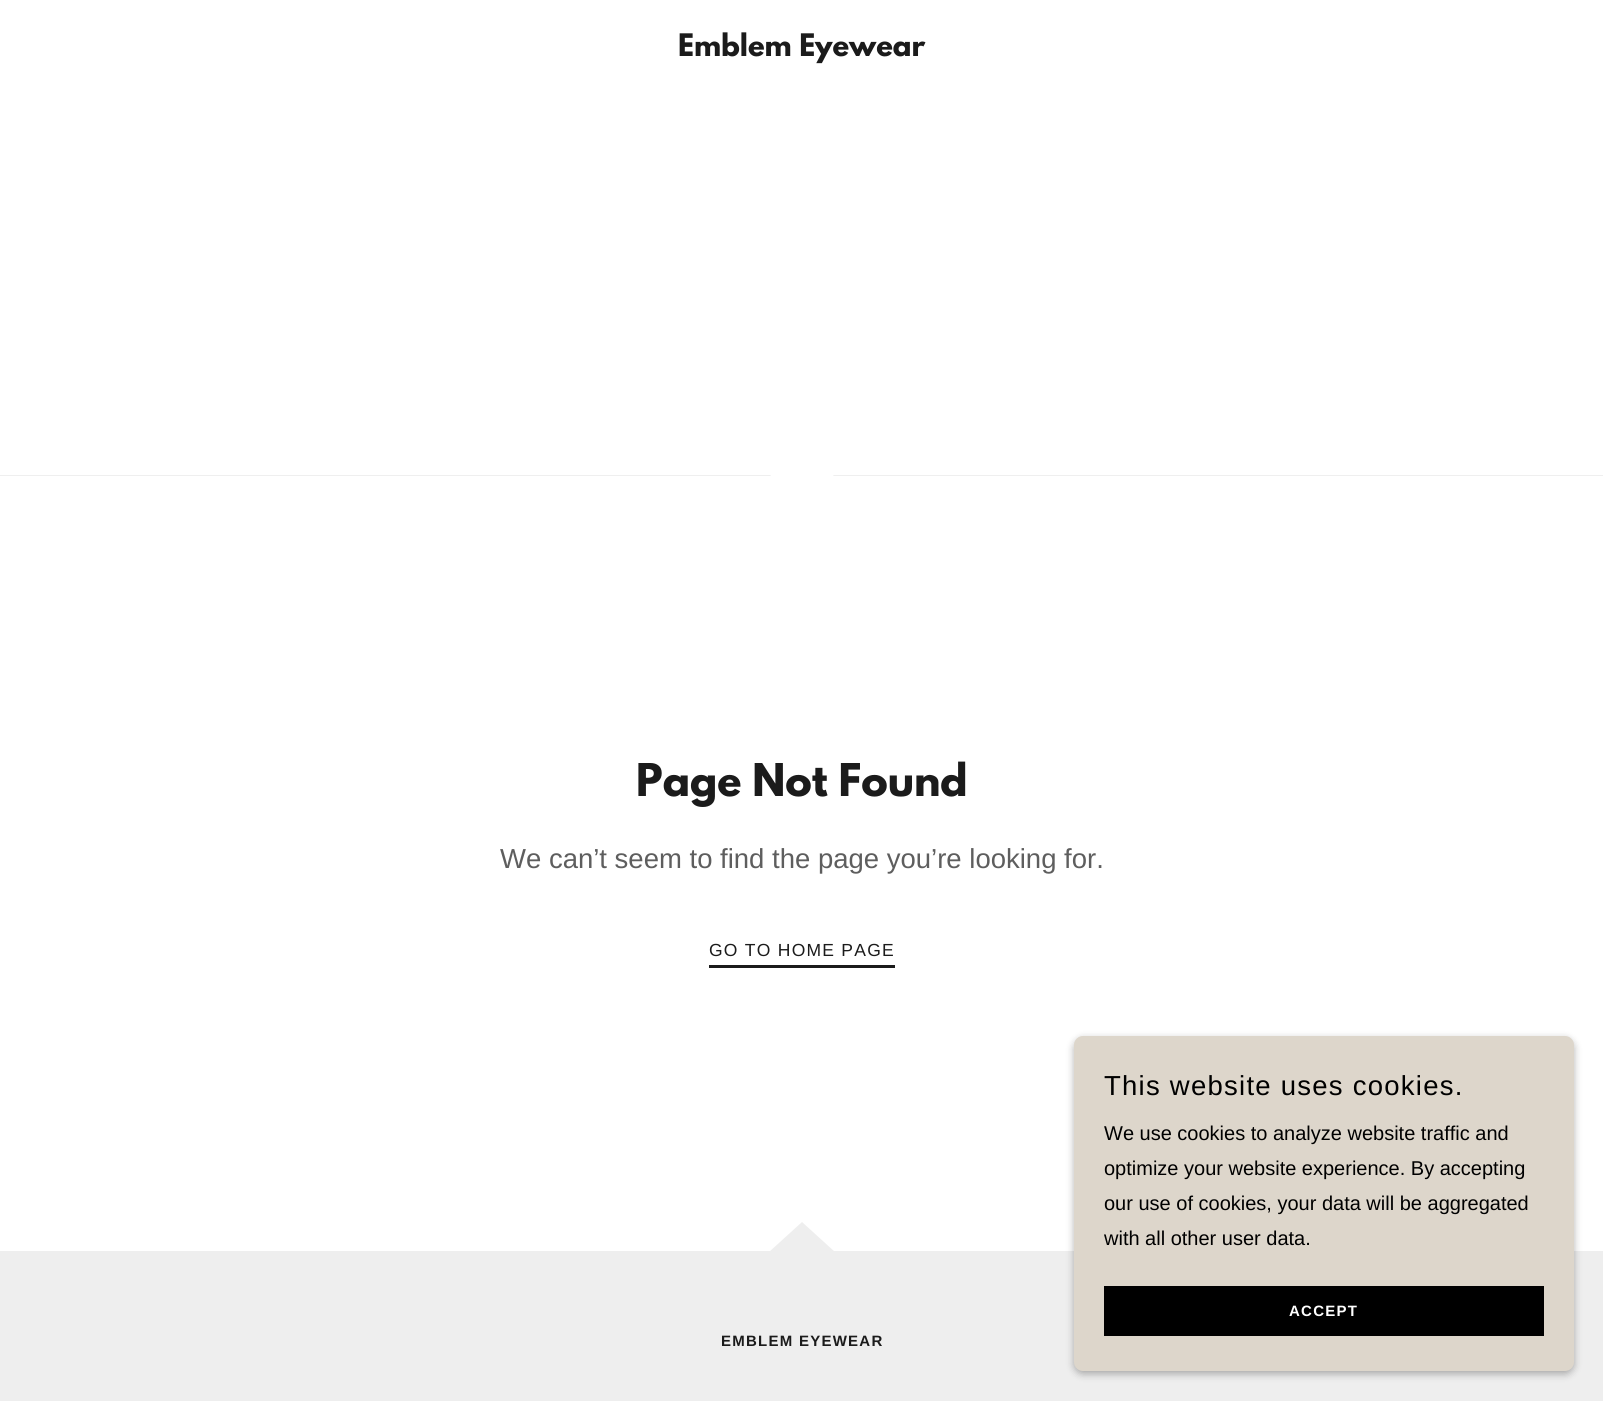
#include <cairo.h>
#include <math.h>
#include <stddef.h>


static void spaced_text(cairo_t *cr, double x, double y, const char *s, double letter, double word) {
    cairo_move_to(cr, x, y);
    while (*s) {
        char ch[5] = {0};
        int n = 0;
        do ch[n++] = *s++; while ((*s & 0xC0) == 0x80);
        cairo_show_text(cr, ch);
        cairo_rel_move_to(cr, letter + word * (*ch == ' '), 0);
    }
}

static void round_rect(cairo_t *cr, double x, double y, double w, double h, double r) {
    cairo_new_sub_path(cr);
    cairo_arc(cr, x + w - r, y + h - r, r, 0, M_PI / 2);
    cairo_arc(cr, x + r, y + h - r, r, M_PI / 2, M_PI);
    cairo_arc(cr, x + r, y + r, r, M_PI, 1.5 * M_PI);
    cairo_arc(cr, x + w - r, y + r, r, 1.5 * M_PI, 2 * M_PI);
    cairo_close_path(cr);
}

static void shadow(cairo_t *cr, double x, double y, double w, double h, double r, double blur, double alpha) {
    cairo_push_group_with_content(cr, CAIRO_CONTENT_ALPHA);
    cairo_set_operator(cr, CAIRO_OPERATOR_SOURCE);
    for (int i = 15; i >= -15 && fmin(w, h) + blur * i / 3 > 0; i -= 2) {
        double e = blur * i / 6;
        cairo_set_source_rgba(cr, 0, 0, 0, alpha * erfc((i - 1) / 8.5) / 2);
        round_rect(cr, x - e, y - e, w + 2 * e, h + 2 * e, fmax(0, fmin(r + e + blur * .6, fmin(w, h) / 2 + e)));
        cairo_fill(cr);
    }
    cairo_pattern_t *soft = cairo_pop_group(cr);
    cairo_mask(cr, soft);
    cairo_pattern_destroy(soft);
}

int main(void) {
    cairo_surface_t *surface = cairo_image_surface_create(CAIRO_FORMAT_RGB24, 1603, 1401);
    cairo_t *cr = cairo_create(surface);
    cairo_font_options_t *options = cairo_font_options_create();
    cairo_font_options_set_hint_metrics(options, CAIRO_HINT_METRICS_OFF);
    cairo_font_options_set_hint_style(options, CAIRO_HINT_STYLE_NONE);
    cairo_set_font_options(cr, options);
    cairo_set_miter_limit(cr, 4);
    cairo_set_source_rgb(cr, 1, 1, 1);
    cairo_paint(cr);
    cairo_set_source_rgb(cr, 0.937, 0.937, 0.937);
    cairo_rectangle(cr, 0, 475, 1603, 1);
    cairo_fill(cr);
    cairo_select_font_face(cr, "League Spartan", CAIRO_FONT_SLANT_NORMAL, CAIRO_FONT_WEIGHT_BOLD);
    cairo_set_font_size(cr, 27.5);
    cairo_set_source_rgb(cr, 0.106, 0.106, 0.106);
    cairo_move_to(cr, 678, 56);
    cairo_show_text(cr, "Emblem Eyewear");
    cairo_set_source_rgb(cr, 1, 1, 1);
    cairo_set_fill_rule(cr, CAIRO_FILL_RULE_EVEN_ODD);
    cairo_new_path(cr);
    cairo_move_to(cr, 802, 504);
    cairo_line_to(cr, 835, 474);
    cairo_line_to(cr, 769, 474);
    cairo_close_path(cr);
    cairo_fill(cr);
    cairo_set_font_size(cr, 40);
    cairo_set_source_rgb(cr, 0.106, 0.106, 0.106);
    cairo_move_to(cr, 636, 796);
    cairo_show_text(cr, "Page Not Found");
    cairo_select_font_face(cr, "Liberation Sans", CAIRO_FONT_SLANT_NORMAL, CAIRO_FONT_WEIGHT_NORMAL);
    cairo_set_font_size(cr, 27.5);
    cairo_set_source_rgb(cr, 0.369, 0.369, 0.369);
    cairo_move_to(cr, 500, 868);
    cairo_show_text(cr, "We can’t seem to find the page you’re looking for.");
    cairo_set_source_rgb(cr, 0.106, 0.106, 0.106);
    cairo_rectangle(cr, 709, 965, 186, 3);
    cairo_fill(cr);
    cairo_set_font_size(cr, 17.5);
    spaced_text(cr, 709, 956, "GO TO HOME PAGE", 1.25, 0);
    cairo_set_source_rgb(cr, 0.933, 0.933, 0.933);
    cairo_rectangle(cr, 0, 1251, 1603, 150);
    cairo_fill(cr);
    cairo_set_source_rgb(cr, 0, 0, 0);
    shadow(cr, 1074, 1039, 500, 335, 9, 4, 0.3);
    cairo_set_source_rgb(cr, 0.867, 0.839, 0.796);
    round_rect(cr, 1074, 1036, 500, 335, 9);
    cairo_fill(cr);
    cairo_set_font_size(cr, 27.5);
    cairo_set_source_rgb(cr, 0, 0, 0);
    spaced_text(cr, 1104, 1095, "This website uses cookies.", 1.25, 0);
    cairo_set_font_size(cr, 20);
    cairo_move_to(cr, 1104, 1140);
    cairo_show_text(cr, "We use cookies to analyze website traffic and");
    cairo_move_to(cr, 1104, 1175);
    cairo_show_text(cr, "optimize your website experience. By accepting");
    cairo_move_to(cr, 1104, 1210);
    cairo_show_text(cr, "our use of cookies, your data will be aggregated");
    cairo_move_to(cr, 1104, 1245);
    cairo_show_text(cr, "with all other user data.");
    cairo_rectangle(cr, 1104, 1286, 440, 50);
    cairo_fill(cr);
    cairo_select_font_face(cr, "Liberation Sans", CAIRO_FONT_SLANT_NORMAL, CAIRO_FONT_WEIGHT_BOLD);
    cairo_set_font_size(cr, 15);
    cairo_set_source_rgb(cr, 1, 1, 1);
    spaced_text(cr, 1289, 1316, "ACCEPT", 1.25, 0);
    cairo_set_source_rgb(cr, 0.933, 0.933, 0.933);
    cairo_new_path(cr);
    cairo_move_to(cr, 802, 1222);
    cairo_line_to(cr, 769, 1252);
    cairo_line_to(cr, 835, 1252);
    cairo_close_path(cr);
    cairo_fill(cr);
    cairo_set_source_rgb(cr, 0.106, 0.106, 0.106);
    spaced_text(cr, 721, 1346, "EMBLEM EYEWEAR", 1.25, 0);
    cairo_surface_write_to_png(surface, "page.png");
    cairo_font_options_destroy(options);
    cairo_destroy(cr);
    cairo_surface_destroy(surface);
    return 0;
}
